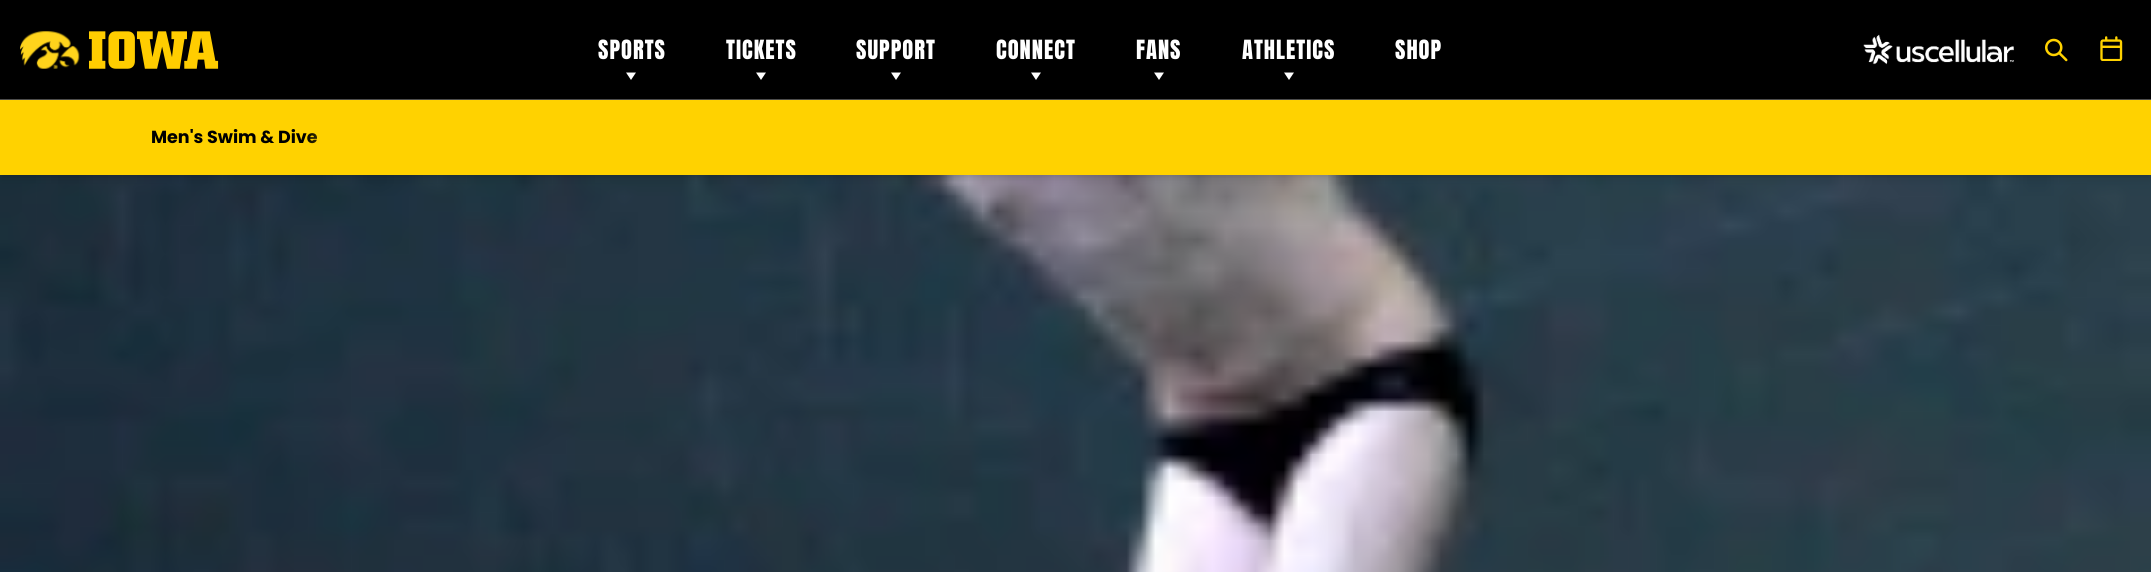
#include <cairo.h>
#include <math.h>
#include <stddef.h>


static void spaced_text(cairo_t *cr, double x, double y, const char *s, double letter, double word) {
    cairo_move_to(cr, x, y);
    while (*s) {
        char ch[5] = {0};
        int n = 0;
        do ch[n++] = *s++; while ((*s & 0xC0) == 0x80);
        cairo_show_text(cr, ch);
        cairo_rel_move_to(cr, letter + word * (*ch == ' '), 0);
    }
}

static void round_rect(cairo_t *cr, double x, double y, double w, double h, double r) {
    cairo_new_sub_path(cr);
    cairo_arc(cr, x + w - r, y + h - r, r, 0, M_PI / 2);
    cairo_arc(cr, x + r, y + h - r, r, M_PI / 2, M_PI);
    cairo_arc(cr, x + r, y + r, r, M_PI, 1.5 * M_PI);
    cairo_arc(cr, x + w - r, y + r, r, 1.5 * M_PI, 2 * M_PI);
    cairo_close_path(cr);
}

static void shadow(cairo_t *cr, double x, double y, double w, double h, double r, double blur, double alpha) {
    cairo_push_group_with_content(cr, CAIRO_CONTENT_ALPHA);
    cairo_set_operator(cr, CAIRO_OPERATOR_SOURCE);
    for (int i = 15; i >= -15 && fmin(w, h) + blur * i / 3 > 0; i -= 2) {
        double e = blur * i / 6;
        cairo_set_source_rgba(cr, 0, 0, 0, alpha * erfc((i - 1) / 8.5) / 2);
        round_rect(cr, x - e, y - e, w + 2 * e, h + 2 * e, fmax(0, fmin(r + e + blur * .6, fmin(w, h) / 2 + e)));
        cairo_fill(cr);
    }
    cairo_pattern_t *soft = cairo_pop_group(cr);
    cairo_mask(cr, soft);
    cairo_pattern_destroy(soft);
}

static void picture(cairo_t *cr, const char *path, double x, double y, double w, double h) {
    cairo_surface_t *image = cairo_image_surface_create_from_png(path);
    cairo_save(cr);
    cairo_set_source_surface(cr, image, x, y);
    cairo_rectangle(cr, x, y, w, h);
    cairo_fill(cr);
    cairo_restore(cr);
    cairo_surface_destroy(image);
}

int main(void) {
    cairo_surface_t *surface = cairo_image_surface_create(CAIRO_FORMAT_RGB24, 2151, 572);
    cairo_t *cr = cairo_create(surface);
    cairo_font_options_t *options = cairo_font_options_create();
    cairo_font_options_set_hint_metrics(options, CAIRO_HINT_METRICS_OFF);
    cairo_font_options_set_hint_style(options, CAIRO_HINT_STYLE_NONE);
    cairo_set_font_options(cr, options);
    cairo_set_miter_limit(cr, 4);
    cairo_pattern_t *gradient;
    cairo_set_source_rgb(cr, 1, 1, 1);
    cairo_paint(cr);
    picture(cr, "img6.png", 0, 175, 2151, 397);
    cairo_set_source_rgb(cr, 0, 0, 0);
    shadow(cr, 3, 105, 2146, 70, 0, 2.5, 0.1);
    shadow(cr, 1, 106, 2149, 73, 0, 4, 0.1);
    cairo_set_source_rgb(cr, 0, 0, 0);
    cairo_rectangle(cr, 0, 0, 2151, 99);
    cairo_fill(cr);
    cairo_set_source_rgb(cr, 0.302, 0.302, 0.302);
    cairo_rectangle(cr, 0, 99, 2151, 1);
    cairo_fill(cr);
    picture(cr, "img1.png", 20, 31, 60, 38);
    picture(cr, "img2.png", 89, 31, 130, 38);
    cairo_select_font_face(cr, "Anton", CAIRO_FONT_SLANT_NORMAL, CAIRO_FONT_WEIGHT_NORMAL);
    cairo_set_font_size(cr, 22.5);
    cairo_set_source_rgb(cr, 1, 1, 1);
    spaced_text(cr, 598, 59, "SPORTS", 1, 0);
    cairo_new_path(cr);
    cairo_move_to(cr, 626, 72.5);
    cairo_line_to(cr, 636, 72.5);
    cairo_line_to(cr, 631, 80);
    cairo_close_path(cr);
    cairo_fill(cr);
    spaced_text(cr, 726, 59, "TICKETS", 1, 0);
    cairo_new_path(cr);
    cairo_move_to(cr, 756, 72.5);
    cairo_line_to(cr, 766, 72.5);
    cairo_line_to(cr, 761, 80);
    cairo_close_path(cr);
    cairo_fill(cr);
    spaced_text(cr, 856, 59, "SUPPORT", 1, 0);
    cairo_new_path(cr);
    cairo_move_to(cr, 891, 72.5);
    cairo_line_to(cr, 901, 72.5);
    cairo_line_to(cr, 896, 80);
    cairo_close_path(cr);
    cairo_fill(cr);
    spaced_text(cr, 996, 59, "CONNECT", 1, 0);
    cairo_new_path(cr);
    cairo_move_to(cr, 1031, 72.5);
    cairo_line_to(cr, 1041, 72.5);
    cairo_line_to(cr, 1036, 80);
    cairo_close_path(cr);
    cairo_fill(cr);
    spaced_text(cr, 1136, 59, "FANS", 1, 0);
    cairo_new_path(cr);
    cairo_move_to(cr, 1154, 72.5);
    cairo_line_to(cr, 1164, 72.5);
    cairo_line_to(cr, 1159, 80);
    cairo_close_path(cr);
    cairo_fill(cr);
    spaced_text(cr, 1242, 59, "ATHLETICS", 1, 0);
    cairo_new_path(cr);
    cairo_move_to(cr, 1284, 72.5);
    cairo_line_to(cr, 1294, 72.5);
    cairo_line_to(cr, 1289, 80);
    cairo_close_path(cr);
    cairo_fill(cr);
    spaced_text(cr, 1395, 59, "SHOP", 1, 0);
    picture(cr, "img3.png", 1863, 34, 151, 31);
    picture(cr, "img4.png", 2045, 38, 23, 24);
    picture(cr, "img5.png", 2100, 36, 23, 25);
    cairo_set_source_rgb(cr, 1, 0.824, 0);
    cairo_rectangle(cr, 0, 100, 2151, 75);
    cairo_fill(cr);
    cairo_select_font_face(cr, "Poppins", CAIRO_FONT_SLANT_NORMAL, CAIRO_FONT_WEIGHT_BOLD);
    cairo_set_font_size(cr, 17.5);
    cairo_set_source_rgb(cr, 0, 0, 0);
    cairo_move_to(cr, 151, 143);
    cairo_show_text(cr, "Men's Swim & Dive");
    gradient = cairo_pattern_create_linear(380, 133, 305, 133);
    cairo_pattern_add_color_stop_rgba(gradient, 0, 1, 0.824, 0, 1);
    cairo_pattern_add_color_stop_rgba(gradient, 0.5, 1, 0.824, 0, 0.6);
    cairo_pattern_add_color_stop_rgba(gradient, 1, 1, 0.824, 0, 0);
    cairo_set_source(cr, gradient);
    cairo_pattern_destroy(gradient);
    cairo_rectangle(cr, 307, 133, 10, 11);
    cairo_fill(cr);
    cairo_surface_write_to_png(surface, "page.png");
    cairo_font_options_destroy(options);
    cairo_destroy(cr);
    cairo_surface_destroy(surface);
    return 0;
}
